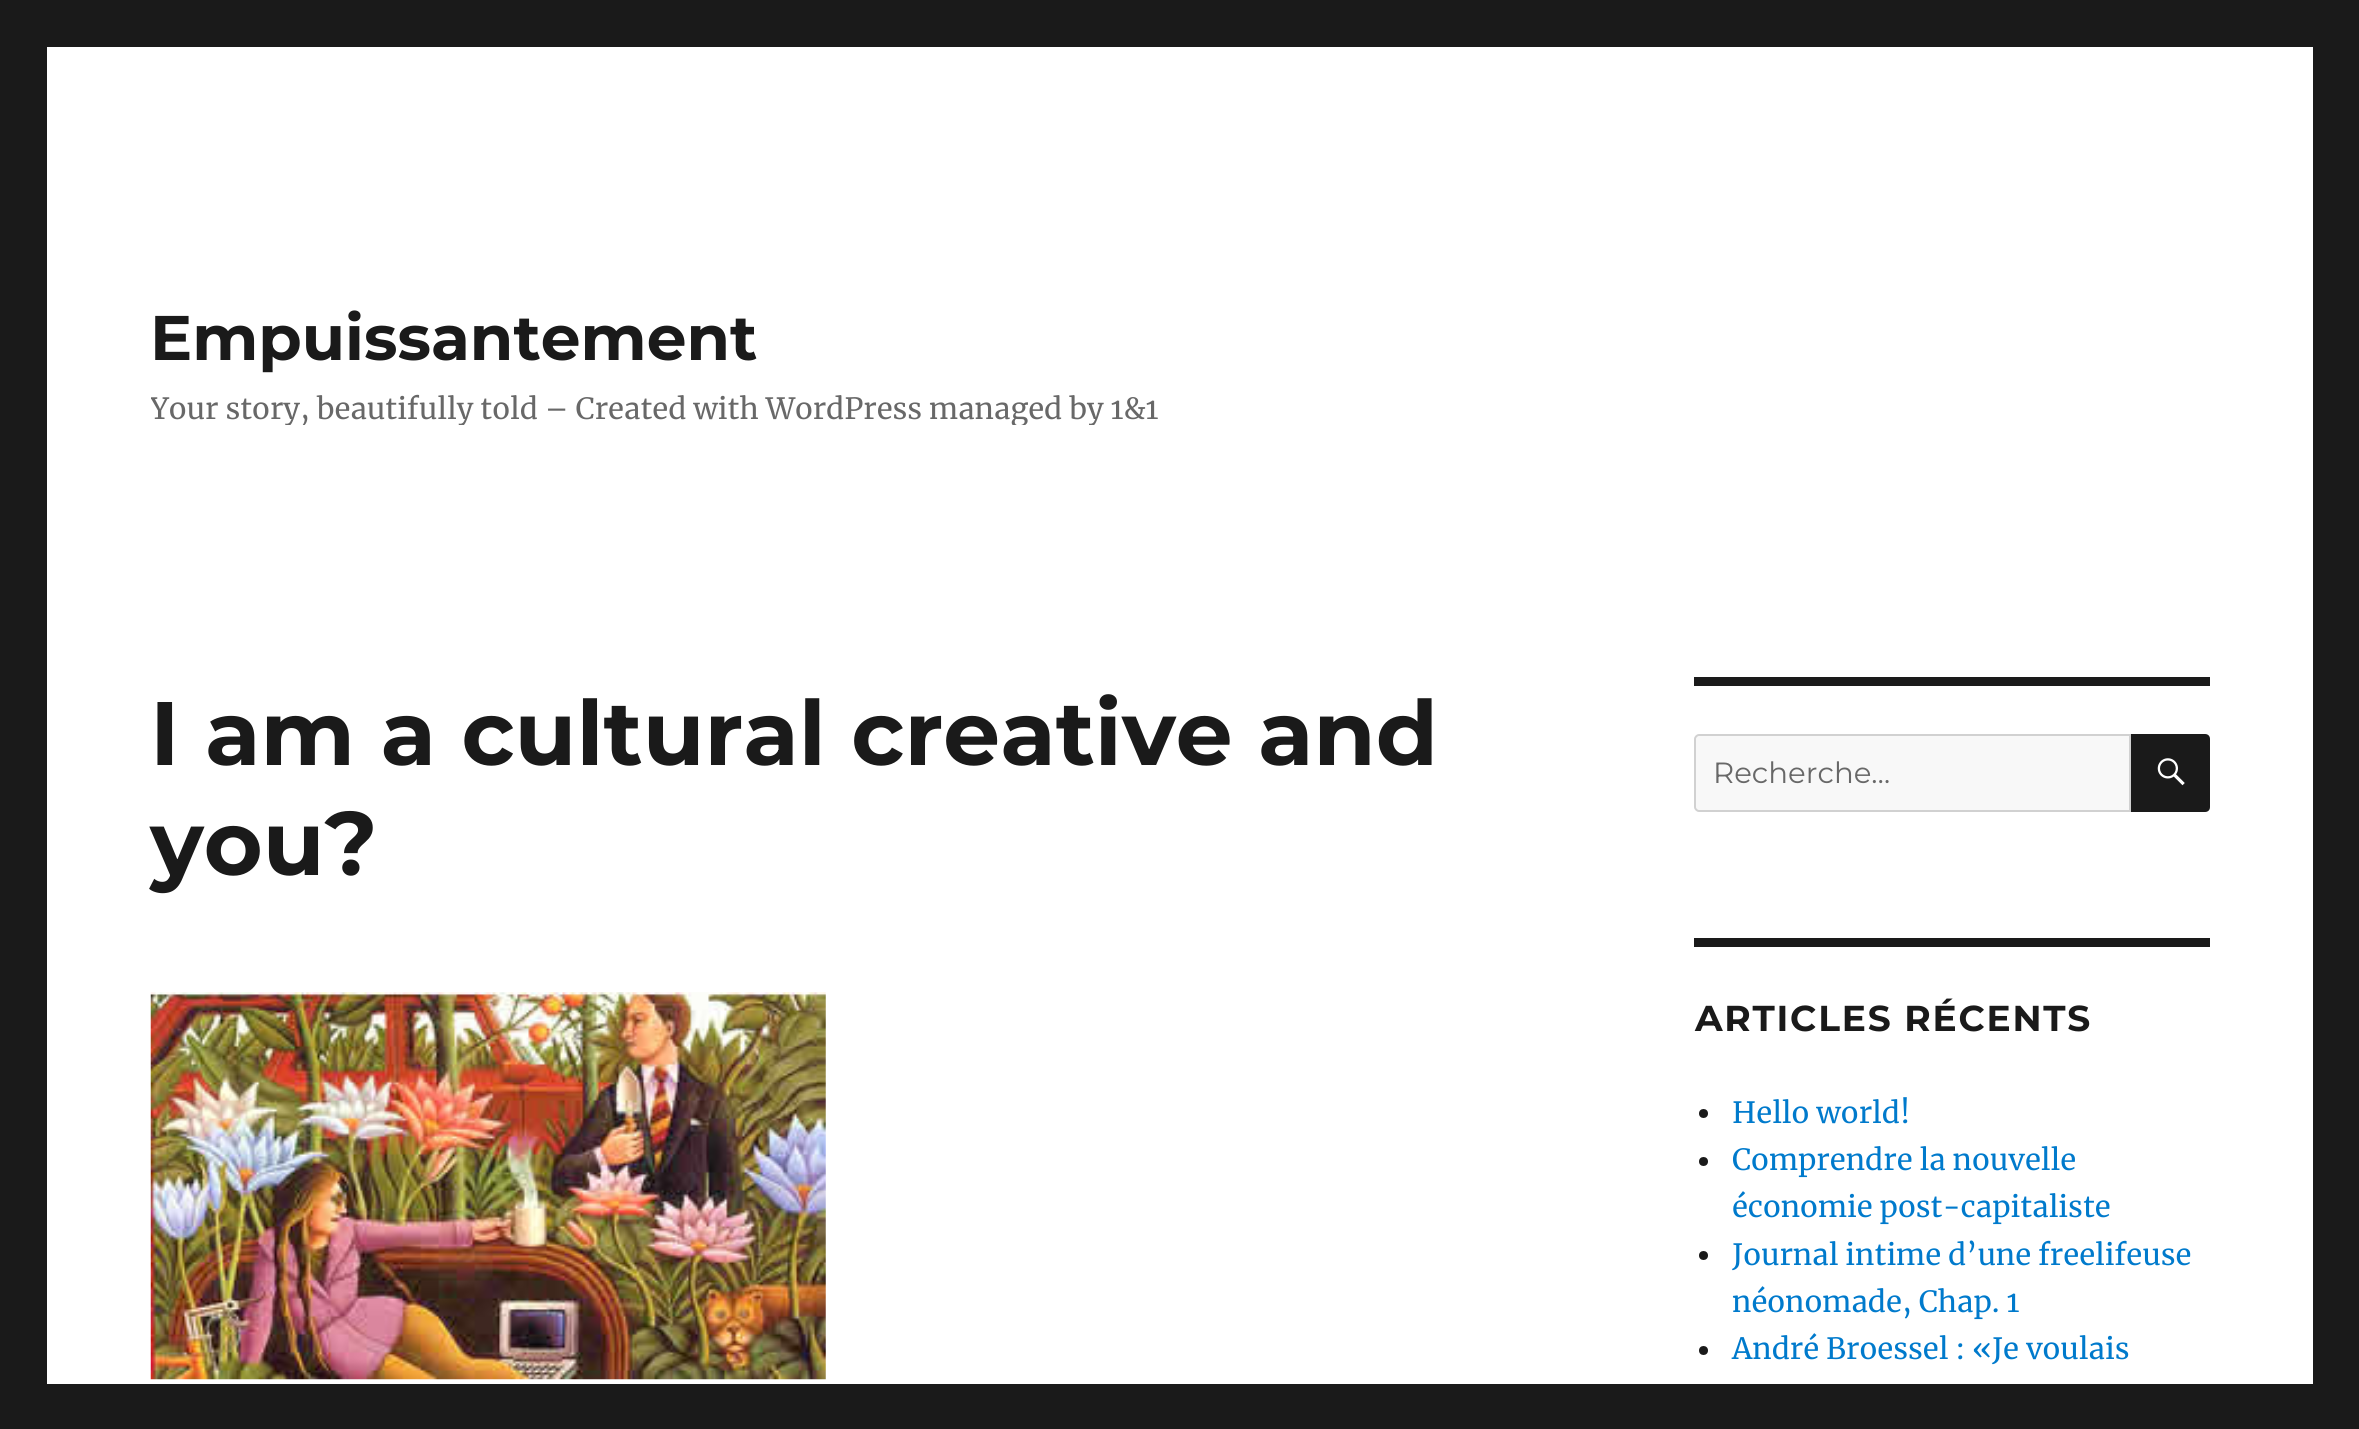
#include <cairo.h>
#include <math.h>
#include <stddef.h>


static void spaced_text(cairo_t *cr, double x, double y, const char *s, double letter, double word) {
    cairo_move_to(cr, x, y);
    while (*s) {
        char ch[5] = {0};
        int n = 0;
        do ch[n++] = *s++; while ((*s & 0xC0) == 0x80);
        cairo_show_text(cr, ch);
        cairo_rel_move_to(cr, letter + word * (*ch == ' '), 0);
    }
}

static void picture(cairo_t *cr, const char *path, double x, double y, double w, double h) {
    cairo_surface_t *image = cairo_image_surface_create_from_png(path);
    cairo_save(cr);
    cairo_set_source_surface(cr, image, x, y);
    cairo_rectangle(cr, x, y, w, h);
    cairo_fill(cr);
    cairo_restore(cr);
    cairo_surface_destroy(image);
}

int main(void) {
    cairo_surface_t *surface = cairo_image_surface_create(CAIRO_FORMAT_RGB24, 2359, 1429);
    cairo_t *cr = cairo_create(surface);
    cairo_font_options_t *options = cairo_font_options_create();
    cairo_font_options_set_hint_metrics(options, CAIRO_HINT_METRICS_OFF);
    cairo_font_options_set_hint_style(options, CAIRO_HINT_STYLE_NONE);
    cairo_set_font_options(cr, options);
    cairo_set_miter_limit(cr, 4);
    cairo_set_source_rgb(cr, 0.102, 0.102, 0.102);
    cairo_paint(cr);
    cairo_set_source_rgb(cr, 1, 1, 1);
    cairo_rectangle(cr, 47, 47, 2266, 1337);
    cairo_fill(cr);
    cairo_select_font_face(cr, "Montserrat Thin", CAIRO_FONT_SLANT_NORMAL, CAIRO_FONT_WEIGHT_NORMAL);
    cairo_set_font_size(cr, 63);
    cairo_set_source_rgb(cr, 0.102, 0.102, 0.102);
    cairo_move_to(cr, 150, 360);
    cairo_show_text(cr, "Empuissantement");
    cairo_save(cr);
    cairo_rectangle(cr, 151, 299, 1008, 126);
    cairo_clip(cr);
    cairo_select_font_face(cr, "Merriweather", CAIRO_FONT_SLANT_NORMAL, CAIRO_FONT_WEIGHT_NORMAL);
    cairo_set_font_size(cr, 29.25);
    cairo_set_source_rgb(cr, 0.408, 0.408, 0.408);
    cairo_move_to(cr, 150, 419);
    cairo_show_text(cr, "Your story, beautifully told – Created with WordPress managed by 1&1");
    cairo_restore(cr);
    cairo_set_font_size(cr, 90);
    cairo_move_to(cr, 150, 765);
    cairo_show_text(cr, "I am a cultural creative and");
    cairo_move_to(cr, 150, 875);
    cairo_show_text(cr, "you?");
    picture(cr, "img1.png", 150, 992, 676, 388);
    cairo_rectangle(cr, 1694, 677, 516, 9);
    cairo_fill(cr);
    cairo_set_source_rgb(cr, 0.969, 0.969, 0.969);
    cairo_new_path(cr);
    cairo_move_to(cr, 1699, 735);
    cairo_line_to(cr, 2130, 735);
    cairo_line_to(cr, 2130, 811);
    cairo_line_to(cr, 1699, 811);
    cairo_curve_to(cr, 1697, 811, 1695, 809, 1695, 807);
    cairo_line_to(cr, 1695, 739);
    cairo_curve_to(cr, 1695, 737, 1697, 735, 1699, 735);
    cairo_close_path(cr);
    cairo_fill_preserve(cr);
    cairo_set_source_rgb(cr, 0.82, 0.82, 0.82);
    cairo_stroke(cr);
    cairo_select_font_face(cr, "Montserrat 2 Thin", CAIRO_FONT_SLANT_NORMAL, CAIRO_FONT_WEIGHT_NORMAL);
    cairo_set_font_size(cr, 29.25);
    cairo_set_source_rgb(cr, 0.408, 0.408, 0.408);
    cairo_move_to(cr, 1713, 783);
    cairo_show_text(cr, "Recherche…");
    cairo_set_source_rgb(cr, 0.102, 0.102, 0.102);
    cairo_new_path(cr);
    cairo_move_to(cr, 2131, 734);
    cairo_line_to(cr, 2205, 734);
    cairo_curve_to(cr, 2208, 734, 2210, 736, 2210, 739);
    cairo_line_to(cr, 2210, 807);
    cairo_curve_to(cr, 2210, 810, 2208, 812, 2205, 812);
    cairo_line_to(cr, 2131, 812);
    cairo_close_path(cr);
    cairo_fill(cr);
    picture(cr, "img2.png", 2157, 758, 28, 28);
    cairo_rectangle(cr, 1694, 938, 516, 9);
    cairo_fill(cr);
    cairo_select_font_face(cr, "Montserrat Thin", CAIRO_FONT_SLANT_NORMAL, CAIRO_FONT_WEIGHT_NORMAL);
    cairo_set_font_size(cr, 36);
    spaced_text(cr, 1695, 1031, "ARTICLES RÉCENTS", 1.75, 0);
    cairo_new_path(cr);
    cairo_arc(cr, 1703.5, 1113.5, 4.5, 0, 2 * M_PI);
    cairo_fill(cr);
    cairo_select_font_face(cr, "Merriweather", CAIRO_FONT_SLANT_NORMAL, CAIRO_FONT_WEIGHT_NORMAL);
    cairo_set_font_size(cr, 29.25);
    cairo_set_source_rgb(cr, 0, 0.478, 0.8);
    cairo_move_to(cr, 1732, 1123);
    cairo_show_text(cr, "Hello world!");
    cairo_set_source_rgb(cr, 0.102, 0.102, 0.102);
    cairo_new_path(cr);
    cairo_arc(cr, 1703.5, 1161.5, 4.5, 0, 2 * M_PI);
    cairo_fill(cr);
    cairo_set_source_rgb(cr, 0, 0.478, 0.8);
    cairo_move_to(cr, 1732, 1170);
    cairo_show_text(cr, "Comprendre la nouvelle");
    cairo_move_to(cr, 1732, 1217);
    cairo_show_text(cr, "économie post-capitaliste");
    cairo_set_source_rgb(cr, 0.102, 0.102, 0.102);
    cairo_new_path(cr);
    cairo_arc(cr, 1703.5, 1255.5, 4.5, 0, 2 * M_PI);
    cairo_fill(cr);
    cairo_set_source_rgb(cr, 0, 0.478, 0.8);
    cairo_move_to(cr, 1732, 1265);
    cairo_show_text(cr, "Journal intime d’une freelifeuse");
    cairo_move_to(cr, 1732, 1312);
    cairo_show_text(cr, "néonomade, Chap. 1");
    cairo_set_source_rgb(cr, 0.102, 0.102, 0.102);
    cairo_new_path(cr);
    cairo_arc(cr, 1703.5, 1350.5, 4.5, 0, 2 * M_PI);
    cairo_fill(cr);
    cairo_set_source_rgb(cr, 0, 0.478, 0.8);
    cairo_move_to(cr, 1732, 1359);
    cairo_show_text(cr, "André Broessel : «Je voulais");
    cairo_surface_write_to_png(surface, "page.png");
    cairo_font_options_destroy(options);
    cairo_destroy(cr);
    cairo_surface_destroy(surface);
    return 0;
}
